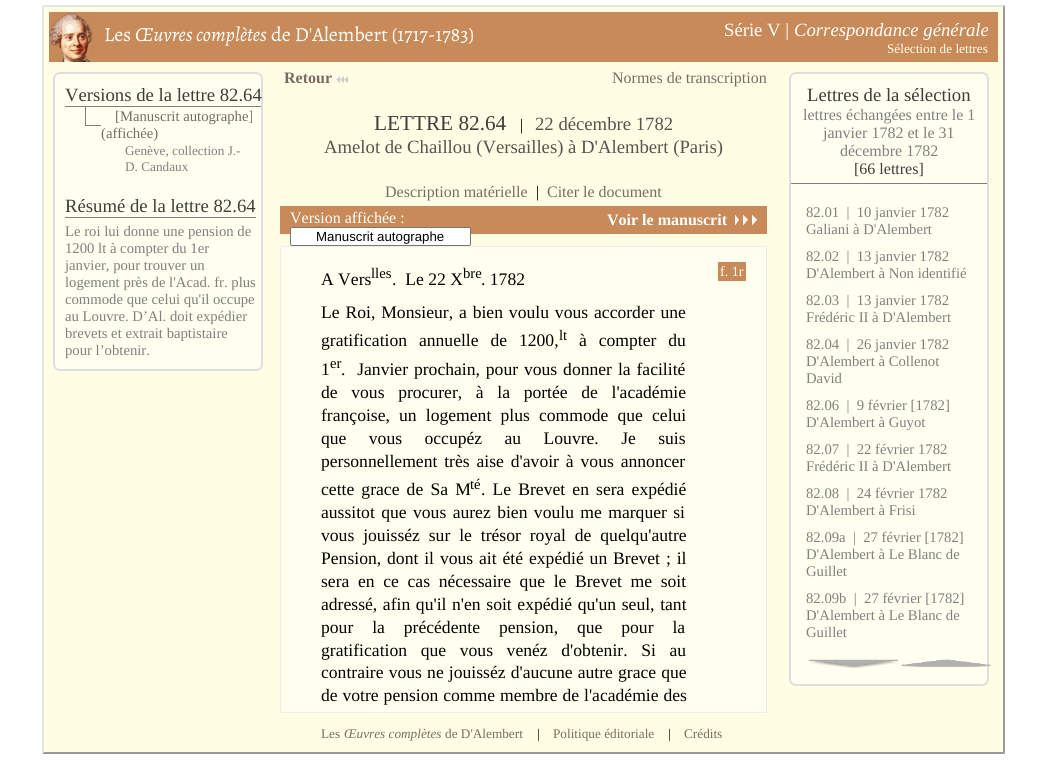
#include <cairo.h>
#include <math.h>
#include <stddef.h>


static void spaced_text(cairo_t *cr, double x, double y, const char *s, double letter, double word) {
    cairo_move_to(cr, x, y);
    while (*s) {
        char ch[5] = {0};
        int n = 0;
        do ch[n++] = *s++; while ((*s & 0xC0) == 0x80);
        cairo_show_text(cr, ch);
        cairo_rel_move_to(cr, letter + word * (*ch == ' '), 0);
    }
}

static void round_rect(cairo_t *cr, double x, double y, double w, double h, double r) {
    cairo_new_sub_path(cr);
    cairo_arc(cr, x + w - r, y + h - r, r, 0, M_PI / 2);
    cairo_arc(cr, x + r, y + h - r, r, M_PI / 2, M_PI);
    cairo_arc(cr, x + r, y + r, r, M_PI, 1.5 * M_PI);
    cairo_arc(cr, x + w - r, y + r, r, 1.5 * M_PI, 2 * M_PI);
    cairo_close_path(cr);
}

static void picture(cairo_t *cr, const char *path, double x, double y, double w, double h) {
    cairo_surface_t *image = cairo_image_surface_create_from_png(path);
    cairo_save(cr);
    cairo_set_source_surface(cr, image, x, y);
    cairo_rectangle(cr, x, y, w, h);
    cairo_fill(cr);
    cairo_restore(cr);
    cairo_surface_destroy(image);
}

int main(void) {
    cairo_surface_t *surface = cairo_image_surface_create(CAIRO_FORMAT_RGB24, 1047, 763);
    cairo_t *cr = cairo_create(surface);
    cairo_font_options_t *options = cairo_font_options_create();
    cairo_font_options_set_hint_metrics(options, CAIRO_HINT_METRICS_OFF);
    cairo_font_options_set_hint_style(options, CAIRO_HINT_STYLE_NONE);
    cairo_set_font_options(cr, options);
    cairo_set_miter_limit(cr, 4);
    cairo_set_source_rgb(cr, 1, 1, 1);
    cairo_paint(cr);
    cairo_set_source_rgb(cr, 1, 0.996, 0.898);
    cairo_rectangle(cr, 42, 5, 963, 749);
    cairo_fill(cr);
    cairo_set_source_rgb(cr, 0.898, 0.898, 0.886);
    cairo_new_path(cr);
    cairo_move_to(cr, 42, 5);
    cairo_line_to(cr, 1005, 5);
    cairo_line_to(cr, 1003, 7);
    cairo_line_to(cr, 44, 7);
    cairo_close_path(cr);
    cairo_fill(cr);
    cairo_set_source_rgb(cr, 0.6, 0.6, 0.592);
    cairo_new_path(cr);
    cairo_move_to(cr, 1005, 5);
    cairo_line_to(cr, 1005, 754);
    cairo_line_to(cr, 1003, 752);
    cairo_line_to(cr, 1003, 7);
    cairo_close_path(cr);
    cairo_fill(cr);
    cairo_new_path(cr);
    cairo_move_to(cr, 1005, 754);
    cairo_line_to(cr, 42, 754);
    cairo_line_to(cr, 44, 752);
    cairo_line_to(cr, 1003, 752);
    cairo_close_path(cr);
    cairo_fill(cr);
    cairo_set_source_rgb(cr, 0.898, 0.898, 0.886);
    cairo_new_path(cr);
    cairo_move_to(cr, 42, 754);
    cairo_line_to(cr, 42, 5);
    cairo_line_to(cr, 44, 7);
    cairo_line_to(cr, 44, 752);
    cairo_close_path(cr);
    cairo_fill(cr);
    cairo_set_source_rgb(cr, 0.784, 0.541, 0.345);
    cairo_rectangle(cr, 95, 12, 903, 50);
    cairo_fill(cr);
    picture(cr, "img1.png", 49, 12, 46, 50);
    cairo_select_font_face(cr, "Alegreya", CAIRO_FONT_SLANT_NORMAL, CAIRO_FONT_WEIGHT_NORMAL);
    cairo_set_font_size(cr, 20);
    cairo_set_source_rgb(cr, 1, 1, 1);
    cairo_move_to(cr, 104, 41);
    cairo_show_text(cr, "Les");
    cairo_select_font_face(cr, "Alegreya", CAIRO_FONT_SLANT_ITALIC, CAIRO_FONT_WEIGHT_NORMAL);
    cairo_move_to(cr, 135, 41);
    cairo_show_text(cr, "Œuvres complètes");
    cairo_select_font_face(cr, "Alegreya", CAIRO_FONT_SLANT_NORMAL, CAIRO_FONT_WEIGHT_NORMAL);
    cairo_move_to(cr, 271, 41);
    cairo_show_text(cr, "de D'Alembert (1717-1783)");
    cairo_select_font_face(cr, "Liberation Serif", CAIRO_FONT_SLANT_NORMAL, CAIRO_FONT_WEIGHT_NORMAL);
    cairo_set_font_size(cr, 18.7);
    cairo_move_to(cr, 724, 36);
    cairo_show_text(cr, "Série V |");
    cairo_select_font_face(cr, "Liberation Serif", CAIRO_FONT_SLANT_ITALIC, CAIRO_FONT_WEIGHT_NORMAL);
    cairo_move_to(cr, 794, 36);
    cairo_show_text(cr, "Correspondance générale");
    cairo_select_font_face(cr, "Liberation Serif", CAIRO_FONT_SLANT_NORMAL, CAIRO_FONT_WEIGHT_NORMAL);
    cairo_set_font_size(cr, 13.25);
    cairo_set_source_rgb(cr, 1, 1, 0.898);
    cairo_move_to(cr, 887, 53);
    cairo_show_text(cr, "Sélection de lettres");
    cairo_set_source_rgb(cr, 1, 1, 0.941);
    round_rect(cr, 54, 73, 208, 297, 6);
    cairo_fill_preserve(cr);
    cairo_set_source_rgb(cr, 0.875, 0.871, 0.871);
    cairo_stroke(cr);
    cairo_set_source_rgb(cr, 0.502, 0.502, 0.502);
    cairo_rectangle(cr, 65, 106, 196, 1);
    cairo_fill(cr);
    cairo_set_font_size(cr, 18.7);
    cairo_set_source_rgb(cr, 0.239, 0.239, 0.235);
    cairo_move_to(cr, 65, 101);
    cairo_show_text(cr, "Versions de la lettre 82.64");
    cairo_set_source_rgb(cr, 0.502, 0.502, 0.502);
    cairo_rectangle(cr, 85, 125, 16, 1);
    cairo_fill(cr);
    cairo_rectangle(cr, 85, 107, 1, 19);
    cairo_fill(cr);
    cairo_set_font_size(cr, 14.7);
    cairo_set_source_rgb(cr, 0.471, 0.424, 0.384);
    cairo_move_to(cr, 115, 121);
    cairo_show_text(cr, "[Manuscrit autographe]");
    cairo_move_to(cr, 101, 138);
    cairo_show_text(cr, "(affichée)");
    cairo_set_font_size(cr, 13.25);
    cairo_set_source_rgb(cr, 0.502, 0.502, 0.502);
    cairo_move_to(cr, 125, 155);
    cairo_show_text(cr, "Genève, collection J.-");
    cairo_move_to(cr, 125, 171);
    cairo_show_text(cr, "D. Candaux");
    cairo_rectangle(cr, 65, 217, 191, 1);
    cairo_fill(cr);
    cairo_set_font_size(cr, 18.7);
    cairo_set_source_rgb(cr, 0.239, 0.239, 0.235);
    cairo_move_to(cr, 65, 212);
    cairo_show_text(cr, "Résumé de la lettre 82.64");
    cairo_set_font_size(cr, 14.7);
    cairo_set_source_rgb(cr, 0.502, 0.502, 0.502);
    cairo_move_to(cr, 65, 236);
    cairo_show_text(cr, "Le roi lui donne une pension de");
    cairo_move_to(cr, 65, 253);
    cairo_show_text(cr, "1200 lt à compter du 1er");
    cairo_move_to(cr, 65, 270);
    cairo_show_text(cr, "janvier, pour trouver un");
    cairo_move_to(cr, 65, 287);
    cairo_show_text(cr, "logement près de l'Acad. fr. plus");
    cairo_move_to(cr, 65, 304);
    cairo_show_text(cr, "commode que celui qu'il occupe");
    cairo_move_to(cr, 65, 321);
    cairo_show_text(cr, "au Louvre. D’Al. doit expédier");
    cairo_move_to(cr, 65, 338);
    cairo_show_text(cr, "brevets et extrait baptistaire");
    cairo_move_to(cr, 65, 355);
    cairo_show_text(cr, "pour l’obtenir.");
    cairo_select_font_face(cr, "Liberation Serif", CAIRO_FONT_SLANT_NORMAL, CAIRO_FONT_WEIGHT_BOLD);
    cairo_set_font_size(cr, 16);
    cairo_set_source_rgb(cr, 0.471, 0.424, 0.384);
    cairo_move_to(cr, 284, 83);
    cairo_show_text(cr, "Retour");
    picture(cr, "img2.png", 336, 76, 4, 7);
    picture(cr, "img2.png", 340, 76, 4, 7);
    picture(cr, "img2.png", 344, 76, 4, 7);
    cairo_select_font_face(cr, "Liberation Serif", CAIRO_FONT_SLANT_NORMAL, CAIRO_FONT_WEIGHT_NORMAL);
    cairo_move_to(cr, 612, 83);
    cairo_show_text(cr, "Normes de transcription");
    cairo_set_font_size(cr, 21.25);
    cairo_set_source_rgb(cr, 0.239, 0.239, 0.235);
    cairo_move_to(cr, 374, 130);
    cairo_show_text(cr, "LETTRE 82.64");
    cairo_set_font_size(cr, 16);
    cairo_set_source_rgb(cr, 0, 0, 0);
    cairo_move_to(cr, 520, 130);
    cairo_show_text(cr, "|");
    cairo_set_font_size(cr, 18.7);
    cairo_set_source_rgb(cr, 0.349, 0.325, 0.31);
    cairo_move_to(cr, 535, 130);
    cairo_show_text(cr, "22 décembre 1782");
    cairo_move_to(cr, 324, 153);
    cairo_show_text(cr, "Amelot de Chaillou (Versailles) à D'Alembert (Paris)");
    cairo_set_font_size(cr, 16);
    cairo_set_source_rgb(cr, 0.471, 0.424, 0.384);
    cairo_move_to(cr, 385, 197);
    cairo_show_text(cr, "Description matérielle");
    cairo_set_source_rgb(cr, 0, 0, 0);
    cairo_move_to(cr, 536, 197);
    cairo_show_text(cr, "|");
    cairo_set_source_rgb(cr, 0.471, 0.424, 0.384);
    cairo_move_to(cr, 547, 197);
    cairo_show_text(cr, "Citer le document");
    cairo_set_source_rgb(cr, 0.784, 0.541, 0.345);
    cairo_rectangle(cr, 280, 206, 487, 28);
    cairo_fill(cr);
    cairo_set_source_rgb(cr, 1, 1, 1);
    cairo_move_to(cr, 290, 223);
    cairo_show_text(cr, "Version affichée :");
    round_rect(cr, 290.5, 227.5, 180, 18, 1.5);
    cairo_fill_preserve(cr);
    cairo_set_source_rgb(cr, 0.463, 0.463, 0.463);
    cairo_set_line_width(cr, 1);
    cairo_stroke(cr);
    cairo_select_font_face(cr, "Liberation Sans", CAIRO_FONT_SLANT_NORMAL, CAIRO_FONT_WEIGHT_NORMAL);
    cairo_set_font_size(cr, 13.25);
    cairo_set_source_rgb(cr, 0, 0, 0);
    cairo_move_to(cr, 316, 241);
    cairo_show_text(cr, "Manuscrit autographe");
    cairo_select_font_face(cr, "Liberation Serif", CAIRO_FONT_SLANT_NORMAL, CAIRO_FONT_WEIGHT_BOLD);
    cairo_set_font_size(cr, 16);
    cairo_set_source_rgb(cr, 1, 1, 1);
    cairo_move_to(cr, 607, 225);
    cairo_show_text(cr, "Voir le manuscrit");
    picture(cr, "img3.png", 735, 215, 4, 10);
    picture(cr, "img4.png", 743, 215, 5, 10);
    picture(cr, "img4.png", 752, 215, 5, 10);
    cairo_set_source_rgb(cr, 1, 1, 0.941);
    cairo_rectangle(cr, 280.5, 246.5, 486, 466);
    cairo_fill_preserve(cr);
    cairo_set_source_rgb(cr, 0.933, 0.933, 0.933);
    cairo_stroke(cr);
    cairo_select_font_face(cr, "Liberation Serif", CAIRO_FONT_SLANT_NORMAL, CAIRO_FONT_WEIGHT_NORMAL);
    cairo_set_font_size(cr, 17.6);
    cairo_set_source_rgb(cr, 0, 0, 0);
    cairo_move_to(cr, 321, 285);
    cairo_show_text(cr, "A Vers");
    cairo_set_font_size(cr, 14.7);
    cairo_move_to(cr, 371, 278);
    cairo_show_text(cr, "lles");
    cairo_set_font_size(cr, 17.6);
    cairo_move_to(cr, 392, 285);
    cairo_show_text(cr, ".  Le 22 X");
    cairo_set_font_size(cr, 14.7);
    cairo_move_to(cr, 463, 278);
    cairo_show_text(cr, "bre");
    cairo_set_font_size(cr, 17.6);
    cairo_move_to(cr, 481, 285);
    cairo_show_text(cr, ". 1782");
    cairo_set_source_rgb(cr, 0.784, 0.541, 0.345);
    cairo_new_path(cr);
    cairo_move_to(cr, 719, 262);
    cairo_line_to(cr, 746, 262);
    cairo_line_to(cr, 746, 281);
    cairo_line_to(cr, 718, 281);
    cairo_line_to(cr, 718, 263);
    cairo_curve_to(cr, 718, 262.5, 718.5, 262, 719, 262);
    cairo_close_path(cr);
    cairo_fill(cr);
    cairo_set_font_size(cr, 14);
    cairo_set_source_rgb(cr, 1, 1, 1);
    cairo_move_to(cr, 720, 276);
    cairo_show_text(cr, "f. 1r");
    cairo_set_font_size(cr, 17.6);
    cairo_set_source_rgb(cr, 0, 0, 0);
    spaced_text(cr, 321, 318, "Le Roi, Monsieur, a bien voulu vous accorder une", 0, 1.5);
    spaced_text(cr, 321, 346, "gratification annuelle de 1200,", 0, 7.5);
    cairo_set_font_size(cr, 14.7);
    cairo_move_to(cr, 559, 340);
    cairo_show_text(cr, "lt");
    cairo_set_font_size(cr, 17.6);
    spaced_text(cr, 579, 346, "à compter du", 0, 7.5);
    cairo_move_to(cr, 321, 375);
    cairo_show_text(cr, "1");
    cairo_set_font_size(cr, 14.7);
    cairo_move_to(cr, 330, 368);
    cairo_show_text(cr, "er");
    cairo_set_font_size(cr, 17.6);
    spaced_text(cr, 341, 375, ".  Janvier prochain, pour vous donner la facilité", 0, 1.5);
    spaced_text(cr, 321, 398, "de vous procurer, à la portée de l'académie", 0, 9.25);
    spaced_text(cr, 321, 421, "françoise, un logement plus commode que celui", 0, 4.75);
    spaced_text(cr, 321, 444, "que vous occupéz au Louvre. Je suis", 0, 18);
    spaced_text(cr, 321, 467, "personnellement très aise d'avoir à vous annoncer", 0, 2.5);
    spaced_text(cr, 321, 495, "cette grace de Sa M", 0, 2.75);
    cairo_set_font_size(cr, 14.7);
    cairo_move_to(cr, 470, 489);
    cairo_show_text(cr, "té");
    cairo_set_font_size(cr, 17.6);
    spaced_text(cr, 481, 495, ". Le Brevet en sera expédié", 0, 2.75);
    spaced_text(cr, 321, 518, "aussitot que vous aurez bien voulu me marquer si", 0, 2);
    spaced_text(cr, 321, 541, "vous jouisséz sur le trésor royal de quelqu'autre", 0, 4.5);
    spaced_text(cr, 321, 564, "Pension, dont il vous ait été expédié un Brevet ; il", 0, 1.5);
    spaced_text(cr, 321, 587, "sera en ce cas nécessaire que le Brevet me soit", 0, 4.25);
    spaced_text(cr, 321, 610, "adressé, afin qu'il n'en soit expédié qu'un seul, tant", 0, 1.25);
    spaced_text(cr, 321, 633, "pour la précédente pension, que pour la", 0, 14.5);
    spaced_text(cr, 321, 656, "gratification que vous venéz d'obtenir. Si au", 0, 9.25);
    spaced_text(cr, 321, 678, "contraire vous ne jouisséz d'aucune autre grace que", 0, 0.75);
    spaced_text(cr, 321, 701, "de votre pension comme membre de l'académie des", 0, 0.5);
    cairo_set_source_rgb(cr, 1, 1, 0.941);
    round_rect(cr, 790, 73, 198, 612, 6);
    cairo_fill_preserve(cr);
    cairo_set_source_rgb(cr, 0.875, 0.871, 0.871);
    cairo_set_line_width(cr, 2);
    cairo_stroke(cr);
    cairo_set_source_rgb(cr, 0.502, 0.502, 0.502);
    cairo_rectangle(cr, 791, 183, 196, 1);
    cairo_fill(cr);
    cairo_set_font_size(cr, 18.7);
    cairo_set_source_rgb(cr, 0.239, 0.239, 0.235);
    cairo_move_to(cr, 807, 101);
    cairo_show_text(cr, "Lettres de la sélection");
    cairo_set_font_size(cr, 16);
    cairo_set_source_rgb(cr, 0.502, 0.502, 0.502);
    cairo_move_to(cr, 803, 120);
    cairo_show_text(cr, "lettres échangées entre le 1");
    cairo_move_to(cr, 823, 138);
    cairo_show_text(cr, "janvier 1782 et le 31");
    cairo_move_to(cr, 840, 156);
    cairo_show_text(cr, "décembre 1782");
    cairo_set_source_rgb(cr, 0.239, 0.239, 0.235);
    cairo_move_to(cr, 854, 174);
    cairo_show_text(cr, "[66 lettres]");
    cairo_set_font_size(cr, 14.7);
    cairo_set_source_rgb(cr, 0.502, 0.502, 0.502);
    cairo_move_to(cr, 806, 217);
    cairo_show_text(cr, "82.01  |  10 janvier 1782");
    cairo_move_to(cr, 806, 234);
    cairo_show_text(cr, "Galiani à D'Alembert");
    cairo_move_to(cr, 806, 261);
    cairo_show_text(cr, "82.02  |  13 janvier 1782");
    cairo_move_to(cr, 806, 278);
    cairo_show_text(cr, "D'Alembert à Non identifié");
    cairo_move_to(cr, 806, 305);
    cairo_show_text(cr, "82.03  |  13 janvier 1782");
    cairo_move_to(cr, 806, 322);
    cairo_show_text(cr, "Frédéric II à D'Alembert");
    cairo_move_to(cr, 806, 349);
    cairo_show_text(cr, "82.04  |  26 janvier 1782");
    cairo_move_to(cr, 806, 366);
    cairo_show_text(cr, "D'Alembert à Collenot");
    cairo_move_to(cr, 806, 383);
    cairo_show_text(cr, "David");
    cairo_move_to(cr, 806, 410);
    cairo_show_text(cr, "82.06  |  9 février [1782]");
    cairo_move_to(cr, 806, 427);
    cairo_show_text(cr, "D'Alembert à Guyot");
    cairo_move_to(cr, 806, 454);
    cairo_show_text(cr, "82.07  |  22 février 1782");
    cairo_move_to(cr, 806, 471);
    cairo_show_text(cr, "Frédéric II à D'Alembert");
    cairo_move_to(cr, 806, 498);
    cairo_show_text(cr, "82.08  |  24 février 1782");
    cairo_move_to(cr, 806, 515);
    cairo_show_text(cr, "D'Alembert à Frisi");
    cairo_move_to(cr, 806, 542);
    cairo_show_text(cr, "82.09a  |  27 février [1782]");
    cairo_move_to(cr, 806, 559);
    cairo_show_text(cr, "D'Alembert à Le Blanc de");
    cairo_move_to(cr, 806, 576);
    cairo_show_text(cr, "Guillet");
    cairo_move_to(cr, 806, 603);
    cairo_show_text(cr, "82.09b  |  27 février [1782]");
    cairo_move_to(cr, 806, 620);
    cairo_show_text(cr, "D'Alembert à Le Blanc de");
    cairo_move_to(cr, 806, 637);
    cairo_show_text(cr, "Guillet");
    picture(cr, "img5.png", 808, 659, 90, 9);
    picture(cr, "img6.png", 901, 659, 90, 8);
    cairo_set_font_size(cr, 13.25);
    cairo_set_source_rgb(cr, 0.471, 0.424, 0.384);
    cairo_move_to(cr, 321, 738);
    cairo_show_text(cr, "Les");
    cairo_select_font_face(cr, "Liberation Serif", CAIRO_FONT_SLANT_ITALIC, CAIRO_FONT_WEIGHT_NORMAL);
    cairo_move_to(cr, 344, 738);
    cairo_show_text(cr, "Œuvres complètes");
    cairo_select_font_face(cr, "Liberation Serif", CAIRO_FONT_SLANT_NORMAL, CAIRO_FONT_WEIGHT_NORMAL);
    cairo_move_to(cr, 445, 738);
    cairo_show_text(cr, "de D'Alembert");
    cairo_set_source_rgb(cr, 0, 0, 0);
    cairo_move_to(cr, 537, 738);
    cairo_show_text(cr, "|");
    cairo_set_source_rgb(cr, 0.471, 0.424, 0.384);
    cairo_move_to(cr, 553, 738);
    cairo_show_text(cr, "Politique éditoriale");
    cairo_set_source_rgb(cr, 0, 0, 0);
    cairo_move_to(cr, 668, 738);
    cairo_show_text(cr, "|");
    cairo_set_source_rgb(cr, 0.471, 0.424, 0.384);
    cairo_move_to(cr, 684, 738);
    cairo_show_text(cr, "Crédits");
    cairo_surface_write_to_png(surface, "page.png");
    cairo_font_options_destroy(options);
    cairo_destroy(cr);
    cairo_surface_destroy(surface);
    return 0;
}
